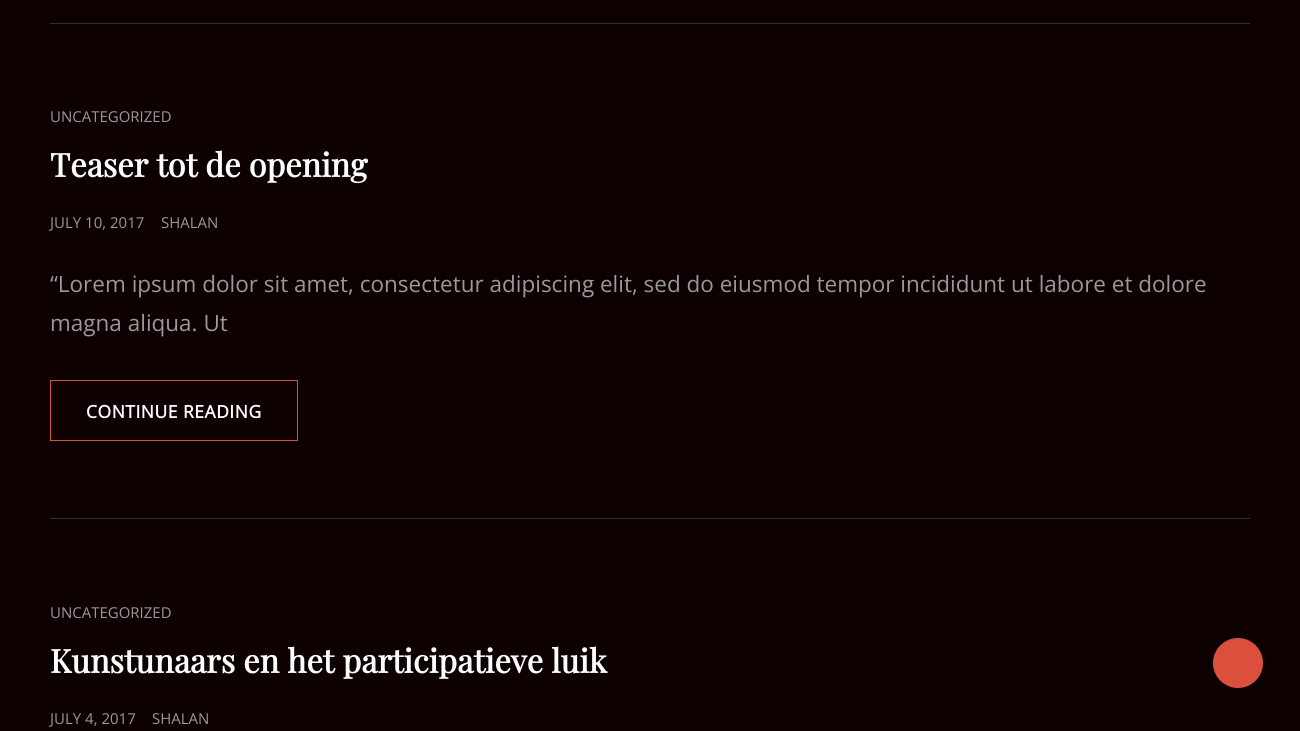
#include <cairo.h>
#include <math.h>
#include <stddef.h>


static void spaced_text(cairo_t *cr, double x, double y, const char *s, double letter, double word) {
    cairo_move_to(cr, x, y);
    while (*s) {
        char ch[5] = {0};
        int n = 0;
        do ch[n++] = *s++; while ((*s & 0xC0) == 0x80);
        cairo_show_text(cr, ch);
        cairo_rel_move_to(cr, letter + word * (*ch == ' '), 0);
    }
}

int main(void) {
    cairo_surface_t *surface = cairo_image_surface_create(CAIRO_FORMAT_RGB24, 1300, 731);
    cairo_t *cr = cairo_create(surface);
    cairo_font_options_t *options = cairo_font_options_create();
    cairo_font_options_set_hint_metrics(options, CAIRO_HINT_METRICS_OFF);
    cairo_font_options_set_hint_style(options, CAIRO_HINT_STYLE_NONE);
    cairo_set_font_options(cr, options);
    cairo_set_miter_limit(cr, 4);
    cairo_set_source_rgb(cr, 0.047, 0, 0);
    cairo_paint(cr);
    cairo_set_source_rgb(cr, 0.184, 0.184, 0.184);
    cairo_rectangle(cr, 50, 23, 1200, 1);
    cairo_fill(cr);
    cairo_rectangle(cr, 50, 518, 1200, 1);
    cairo_fill(cr);
    cairo_select_font_face(cr, "Open Sans", CAIRO_FONT_SLANT_NORMAL, CAIRO_FONT_WEIGHT_NORMAL);
    cairo_set_font_size(cr, 15);
    cairo_set_source_rgb(cr, 0.6, 0.6, 0.6);
    cairo_move_to(cr, 50, 122);
    cairo_show_text(cr, "UNCATEGORIZED");
    cairo_select_font_face(cr, "Playfair Display", CAIRO_FONT_SLANT_NORMAL, CAIRO_FONT_WEIGHT_BOLD);
    cairo_set_font_size(cr, 32.5);
    cairo_set_source_rgb(cr, 1, 1, 1);
    cairo_move_to(cr, 50, 177);
    cairo_show_text(cr, "Teaser tot de opening");
    cairo_select_font_face(cr, "Open Sans", CAIRO_FONT_SLANT_NORMAL, CAIRO_FONT_WEIGHT_NORMAL);
    cairo_set_font_size(cr, 15);
    cairo_set_source_rgb(cr, 0.6, 0.6, 0.6);
    cairo_move_to(cr, 50, 228);
    cairo_show_text(cr, "JULY 10, 2017");
    cairo_move_to(cr, 161, 228);
    cairo_show_text(cr, "SHALAN");
    cairo_set_font_size(cr, 22.5);
    cairo_move_to(cr, 50, 292);
    cairo_show_text(cr, "“Lorem ipsum dolor sit amet, consectetur adipiscing elit, sed do eiusmod tempor incididunt ut labore et dolore");
    cairo_move_to(cr, 50, 331);
    cairo_show_text(cr, "magna aliqua. Ut");
    cairo_rectangle(cr, 50.5, 380.5, 247, 60);
    cairo_set_source_rgb(cr, 0.859, 0.31, 0.239);
    cairo_set_line_width(cr, 1);
    cairo_stroke(cr);
    cairo_select_font_face(cr, "Open Sans", CAIRO_FONT_SLANT_NORMAL, CAIRO_FONT_WEIGHT_BOLD);
    cairo_set_font_size(cr, 17.5);
    cairo_set_source_rgb(cr, 1, 1, 1);
    spaced_text(cr, 86, 418, "CONTINUE READING", 0.5, 0);
    cairo_select_font_face(cr, "Open Sans", CAIRO_FONT_SLANT_NORMAL, CAIRO_FONT_WEIGHT_NORMAL);
    cairo_set_font_size(cr, 15);
    cairo_set_source_rgb(cr, 0.6, 0.6, 0.6);
    cairo_move_to(cr, 50, 618);
    cairo_show_text(cr, "UNCATEGORIZED");
    cairo_select_font_face(cr, "Playfair Display", CAIRO_FONT_SLANT_NORMAL, CAIRO_FONT_WEIGHT_BOLD);
    cairo_set_font_size(cr, 32.5);
    cairo_set_source_rgb(cr, 1, 1, 1);
    cairo_move_to(cr, 50, 673);
    cairo_show_text(cr, "Kunstunaars en het participatieve luik");
    cairo_select_font_face(cr, "Open Sans", CAIRO_FONT_SLANT_NORMAL, CAIRO_FONT_WEIGHT_NORMAL);
    cairo_set_font_size(cr, 15);
    cairo_set_source_rgb(cr, 0.6, 0.6, 0.6);
    cairo_move_to(cr, 50, 724);
    cairo_show_text(cr, "JULY 4, 2017");
    cairo_move_to(cr, 152, 724);
    cairo_show_text(cr, "SHALAN");
    cairo_set_source_rgb(cr, 0.859, 0.31, 0.239);
    cairo_new_path(cr);
    cairo_arc(cr, 1238, 663, 25, 0, 2 * M_PI);
    cairo_fill(cr);
    cairo_surface_write_to_png(surface, "page.png");
    cairo_font_options_destroy(options);
    cairo_destroy(cr);
    cairo_surface_destroy(surface);
    return 0;
}
